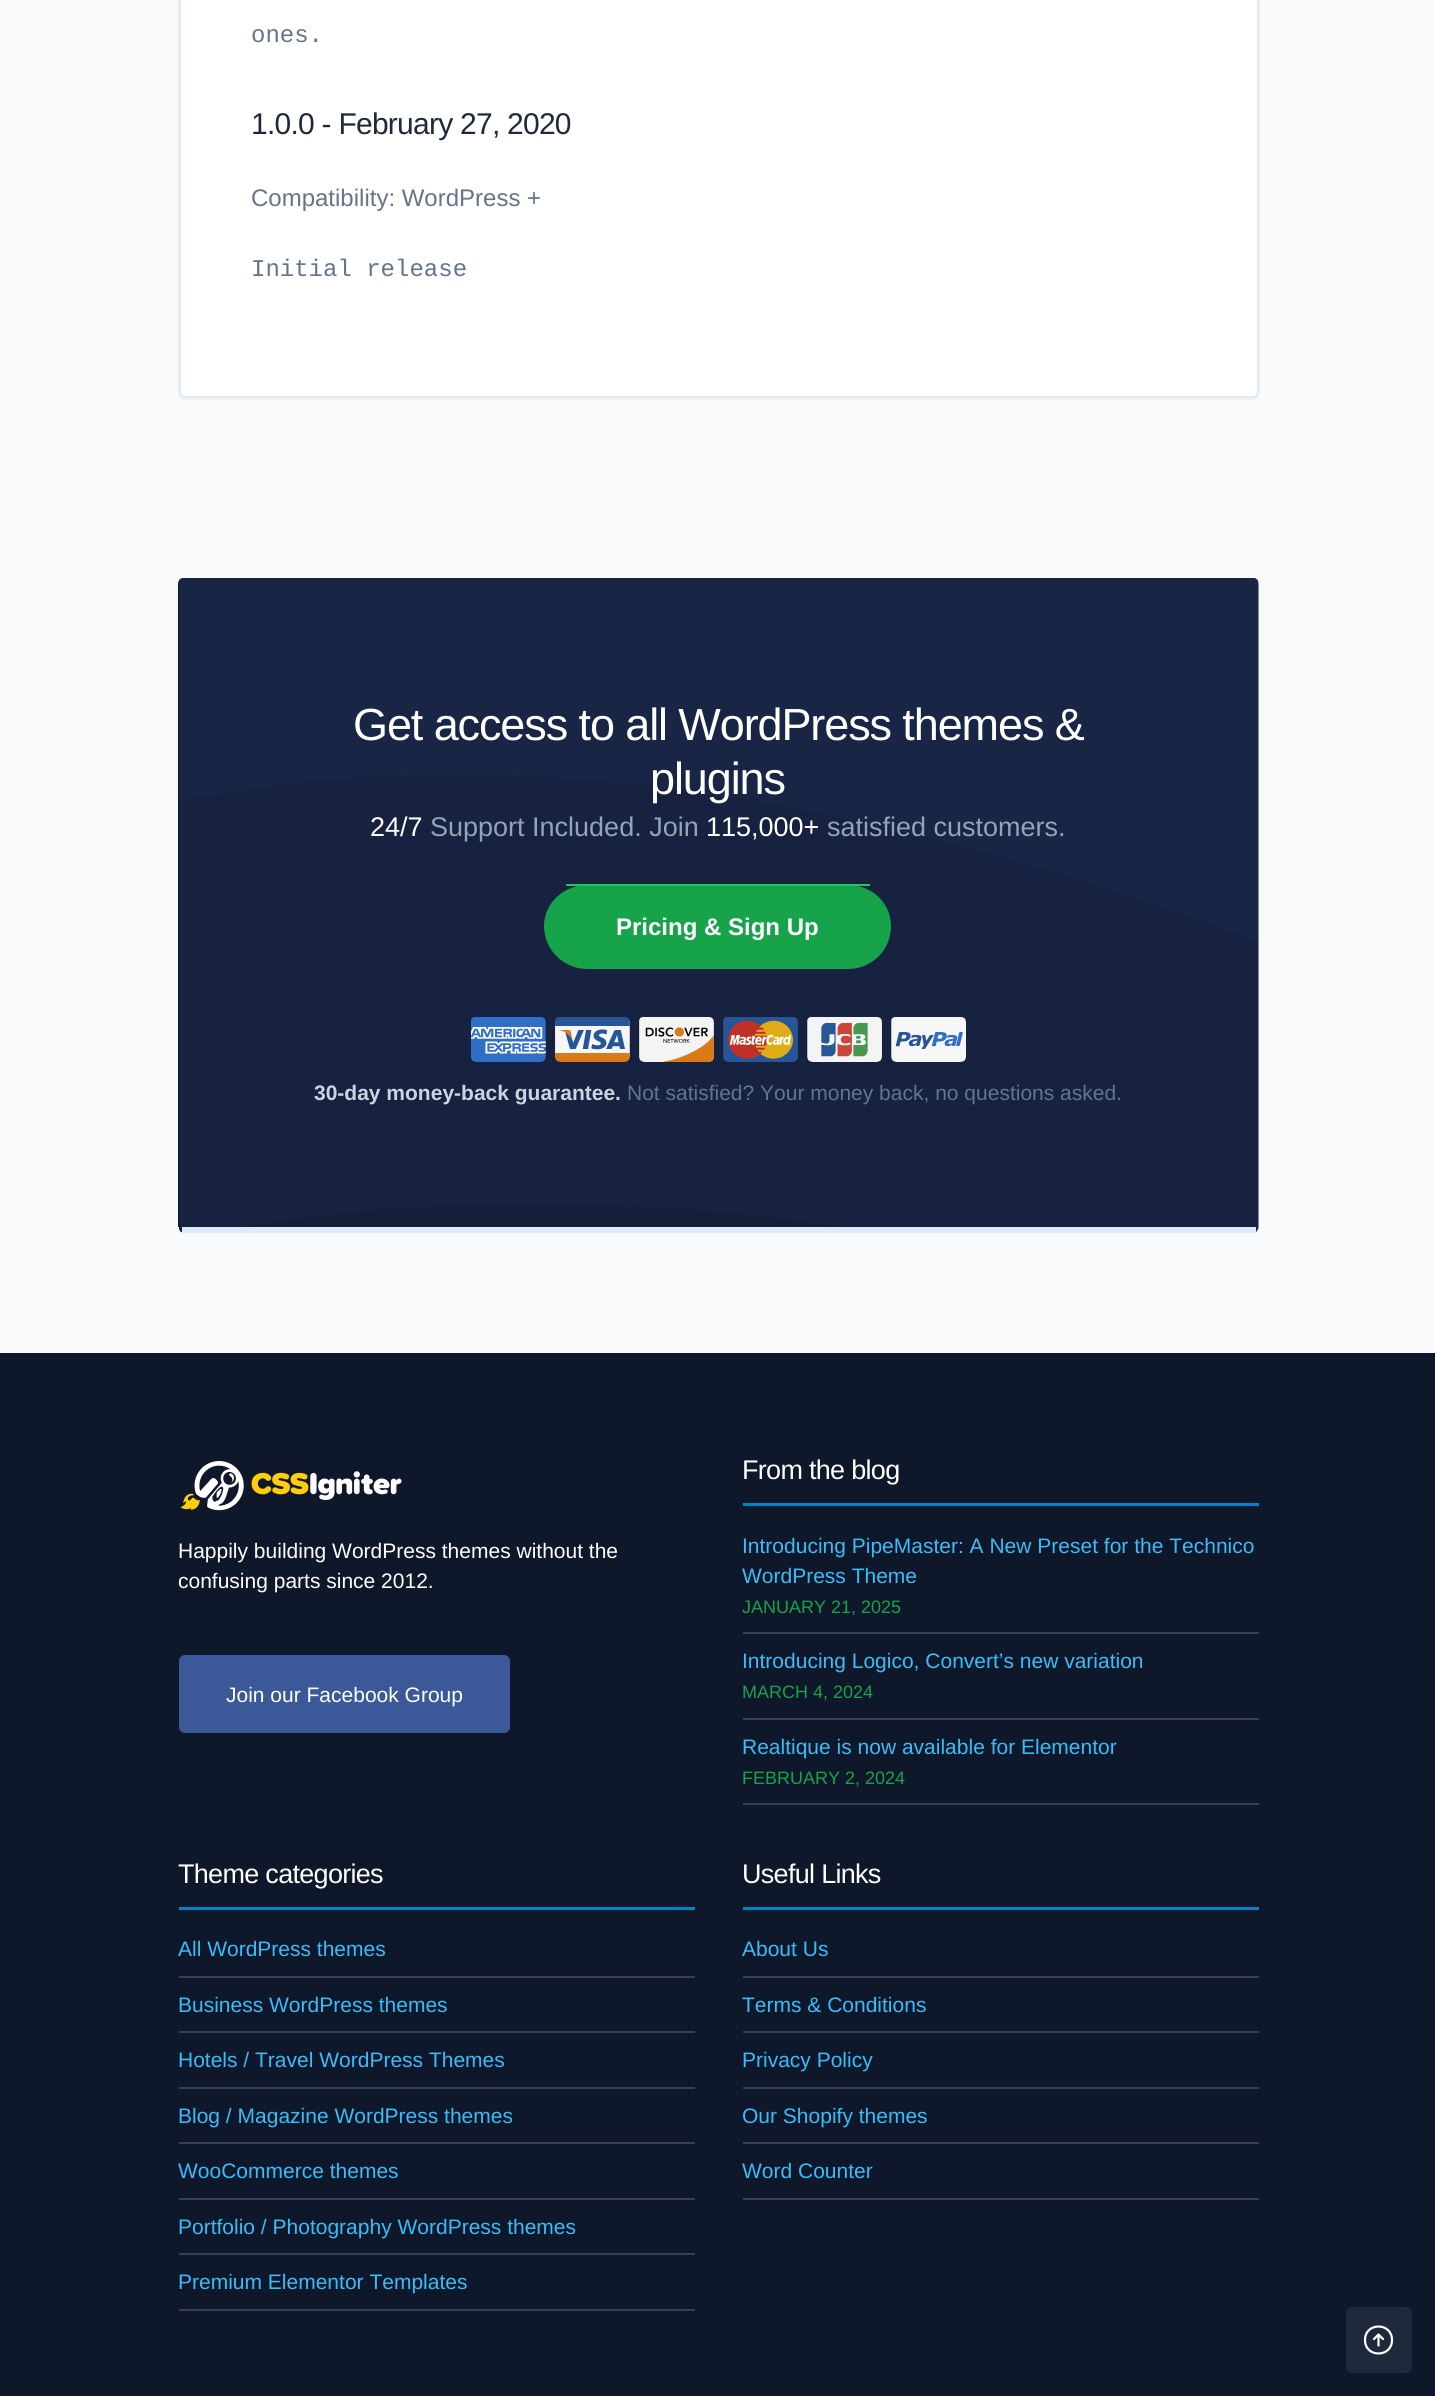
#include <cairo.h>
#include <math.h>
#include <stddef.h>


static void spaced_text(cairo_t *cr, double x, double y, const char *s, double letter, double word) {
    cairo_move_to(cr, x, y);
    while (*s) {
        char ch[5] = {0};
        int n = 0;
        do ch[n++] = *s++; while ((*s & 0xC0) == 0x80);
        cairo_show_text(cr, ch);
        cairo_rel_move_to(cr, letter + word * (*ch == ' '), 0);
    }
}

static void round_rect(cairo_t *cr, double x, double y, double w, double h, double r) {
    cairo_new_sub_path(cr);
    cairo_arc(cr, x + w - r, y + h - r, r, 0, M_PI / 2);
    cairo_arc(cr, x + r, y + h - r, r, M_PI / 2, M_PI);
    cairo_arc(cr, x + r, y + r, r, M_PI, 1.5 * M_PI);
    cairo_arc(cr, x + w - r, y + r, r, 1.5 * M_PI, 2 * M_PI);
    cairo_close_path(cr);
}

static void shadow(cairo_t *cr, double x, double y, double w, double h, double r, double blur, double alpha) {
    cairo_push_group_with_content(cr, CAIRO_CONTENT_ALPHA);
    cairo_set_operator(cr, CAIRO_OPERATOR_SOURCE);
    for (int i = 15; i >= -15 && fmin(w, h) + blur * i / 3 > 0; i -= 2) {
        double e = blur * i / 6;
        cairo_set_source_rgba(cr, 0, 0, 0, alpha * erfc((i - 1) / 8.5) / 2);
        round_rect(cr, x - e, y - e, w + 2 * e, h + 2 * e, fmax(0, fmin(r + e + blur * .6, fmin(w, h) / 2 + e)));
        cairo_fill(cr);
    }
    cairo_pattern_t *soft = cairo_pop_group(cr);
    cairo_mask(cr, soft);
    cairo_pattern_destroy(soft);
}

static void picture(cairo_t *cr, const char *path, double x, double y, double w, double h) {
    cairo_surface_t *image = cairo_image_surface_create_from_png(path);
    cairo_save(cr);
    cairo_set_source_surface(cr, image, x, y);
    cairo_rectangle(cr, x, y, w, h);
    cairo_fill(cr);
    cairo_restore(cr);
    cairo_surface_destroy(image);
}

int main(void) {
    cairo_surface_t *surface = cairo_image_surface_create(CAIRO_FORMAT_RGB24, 1435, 2396);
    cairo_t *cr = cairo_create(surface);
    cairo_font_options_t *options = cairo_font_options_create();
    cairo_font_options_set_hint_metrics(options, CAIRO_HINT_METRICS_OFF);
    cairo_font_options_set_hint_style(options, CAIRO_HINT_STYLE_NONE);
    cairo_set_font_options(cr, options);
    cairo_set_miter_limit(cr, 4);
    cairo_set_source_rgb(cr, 0.973, 0.98, 0.988);
    cairo_paint(cr);
    cairo_set_source_rgb(cr, 0.886, 0.91, 0.941);
    shadow(cr, 179, -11, 1080, 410, 6, 1.5, 1);
    cairo_set_source_rgb(cr, 1, 1, 1);
    round_rect(cr, 180, -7, 1078, 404, 5);
    cairo_fill_preserve(cr);
    cairo_set_source_rgb(cr, 0.886, 0.91, 0.941);
    cairo_stroke(cr);
    cairo_select_font_face(cr, "Liberation Mono", CAIRO_FONT_SLANT_NORMAL, CAIRO_FONT_WEIGHT_NORMAL);
    cairo_set_font_size(cr, 24);
    cairo_set_source_rgb(cr, 0.392, 0.455, 0.545);
    cairo_move_to(cr, 251, 42);
    cairo_show_text(cr, "ones.");
    cairo_select_font_face(cr, "Liberation Sans", CAIRO_FONT_SLANT_NORMAL, CAIRO_FONT_WEIGHT_NORMAL);
    cairo_set_font_size(cr, 30);
    cairo_set_source_rgb(cr, 0.118, 0.161, 0.231);
    spaced_text(cr, 251, 134, "1.0.0 - February 27, 2020", -0.75, 0);
    cairo_set_font_size(cr, 24);
    cairo_set_source_rgb(cr, 0.392, 0.455, 0.545);
    cairo_move_to(cr, 251, 206);
    cairo_show_text(cr, "Compatibility: WordPress +");
    cairo_select_font_face(cr, "Liberation Mono", CAIRO_FONT_SLANT_NORMAL, CAIRO_FONT_WEIGHT_NORMAL);
    cairo_move_to(cr, 251, 276);
    cairo_show_text(cr, "Initial release");
    cairo_set_source_rgb(cr, 0.059, 0.09, 0.165);
    cairo_new_path(cr);
    cairo_move_to(cr, 184, 578);
    cairo_line_to(cr, 1252, 578);
    cairo_curve_to(cr, 1256, 578, 1258, 580, 1258, 584);
    cairo_line_to(cr, 1258, 1227);
    cairo_line_to(cr, 178, 1227);
    cairo_line_to(cr, 178, 584);
    cairo_curve_to(cr, 178, 580, 181, 578, 184, 578);
    cairo_close_path(cr);
    cairo_fill(cr);
    picture(cr, "img1.png", 179, 578, 1080, 655);
    cairo_set_source_rgb(cr, 0.859, 0.918, 0.996);
    cairo_rectangle(cr, 182, 1227, 1074, 6);
    cairo_fill(cr);
    cairo_select_font_face(cr, "Liberation Sans", CAIRO_FONT_SLANT_NORMAL, CAIRO_FONT_WEIGHT_NORMAL);
    cairo_set_font_size(cr, 45);
    cairo_set_source_rgb(cr, 1, 1, 1);
    spaced_text(cr, 353, 740, "Get access to all WordPress themes &", -1.1, 0);
    spaced_text(cr, 650, 794, "plugins", -1.1, 0);
    cairo_set_font_size(cr, 27);
    cairo_move_to(cr, 370, 836);
    cairo_show_text(cr, "24/7");
    cairo_set_source_rgb(cr, 0.58, 0.639, 0.722);
    cairo_move_to(cr, 430, 836);
    cairo_show_text(cr, "Support Included. Join");
    cairo_set_source_rgb(cr, 1, 1, 1);
    cairo_move_to(cr, 706, 836);
    cairo_show_text(cr, "115,000+");
    cairo_set_source_rgb(cr, 0.58, 0.639, 0.722);
    cairo_move_to(cr, 827, 836);
    cairo_show_text(cr, "satisfied customers.");
    cairo_set_source_rgb(cr, 0.086, 0.639, 0.29);
    cairo_new_path(cr);
    cairo_move_to(cr, 587, 885);
    cairo_line_to(cr, 848, 885);
    cairo_curve_to(cr, 872, 885, 891, 903, 891, 926);
    cairo_curve_to(cr, 891, 950, 872, 969, 848, 969);
    cairo_line_to(cr, 587, 969);
    cairo_curve_to(cr, 564, 969, 544, 950, 544, 926);
    cairo_curve_to(cr, 544, 903, 564, 885, 587, 885);
    cairo_close_path(cr);
    cairo_fill(cr);
    cairo_set_source_rgb(cr, 0.133, 0.773, 0.369);
    cairo_rectangle(cr, 566, 884, 304, 2);
    cairo_fill(cr);
    cairo_select_font_face(cr, "Liberation Sans", CAIRO_FONT_SLANT_NORMAL, CAIRO_FONT_WEIGHT_BOLD);
    cairo_set_font_size(cr, 24);
    cairo_set_source_rgb(cr, 1, 1, 1);
    cairo_move_to(cr, 616, 935);
    cairo_show_text(cr, "Pricing & Sign Up");
    picture(cr, "img2.png", 471, 1017, 495, 45);
    cairo_set_font_size(cr, 21);
    cairo_set_source_rgb(cr, 0.796, 0.835, 0.882);
    cairo_move_to(cr, 314, 1100);
    cairo_show_text(cr, "30-day money-back guarantee.");
    cairo_select_font_face(cr, "Liberation Sans", CAIRO_FONT_SLANT_NORMAL, CAIRO_FONT_WEIGHT_NORMAL);
    cairo_set_source_rgb(cr, 0.392, 0.455, 0.545);
    cairo_move_to(cr, 627, 1100);
    cairo_show_text(cr, "Not satisfied? Your money back, no questions asked.");
    cairo_set_source_rgb(cr, 0.059, 0.09, 0.165);
    cairo_rectangle(cr, 0, 1353, 1435, 1043);
    cairo_fill(cr);
    picture(cr, "img3.png", 180, 1461, 222, 50);
    cairo_set_source_rgb(cr, 1, 1, 1);
    cairo_move_to(cr, 178, 1558);
    cairo_show_text(cr, "Happily building WordPress themes without the");
    cairo_move_to(cr, 178, 1588);
    cairo_show_text(cr, "confusing parts since 2012.");
    cairo_set_source_rgb(cr, 0.231, 0.349, 0.596);
    round_rect(cr, 179, 1655, 331, 78, 6);
    cairo_fill(cr);
    cairo_set_source_rgb(cr, 1, 1, 1);
    cairo_move_to(cr, 226, 1702);
    cairo_show_text(cr, "Join our Facebook Group");
    cairo_set_source_rgb(cr, 0.008, 0.518, 0.78);
    cairo_rectangle(cr, 743, 1503, 516, 3);
    cairo_fill(cr);
    cairo_set_font_size(cr, 27);
    cairo_set_source_rgb(cr, 1, 1, 1);
    spaced_text(cr, 742, 1479, "From the blog", -0.7, 0);
    cairo_set_source_rgb(cr, 0.2, 0.255, 0.333);
    cairo_rectangle(cr, 743, 1632, 516, 2);
    cairo_fill(cr);
    cairo_set_font_size(cr, 21);
    cairo_set_source_rgb(cr, 0.22, 0.741, 0.973);
    cairo_move_to(cr, 742, 1553);
    cairo_show_text(cr, "Introducing PipeMaster: A New Preset for the Technico");
    cairo_move_to(cr, 742, 1583);
    cairo_show_text(cr, "WordPress Theme");
    cairo_set_font_size(cr, 18);
    cairo_set_source_rgb(cr, 0.086, 0.639, 0.29);
    cairo_move_to(cr, 742, 1613);
    cairo_show_text(cr, "JANUARY 21, 2025");
    cairo_set_source_rgb(cr, 0.2, 0.255, 0.333);
    cairo_rectangle(cr, 743, 1718, 516, 2);
    cairo_fill(cr);
    cairo_set_font_size(cr, 21);
    cairo_set_source_rgb(cr, 0.22, 0.741, 0.973);
    cairo_move_to(cr, 742, 1668);
    cairo_show_text(cr, "Introducing Logico, Convert’s new variation");
    cairo_set_font_size(cr, 18);
    cairo_set_source_rgb(cr, 0.086, 0.639, 0.29);
    cairo_move_to(cr, 742, 1698);
    cairo_show_text(cr, "MARCH 4, 2024");
    cairo_set_source_rgb(cr, 0.2, 0.255, 0.333);
    cairo_rectangle(cr, 743, 1803, 516, 2);
    cairo_fill(cr);
    cairo_set_font_size(cr, 21);
    cairo_set_source_rgb(cr, 0.22, 0.741, 0.973);
    cairo_move_to(cr, 742, 1754);
    cairo_show_text(cr, "Realtique is now available for Elementor");
    cairo_set_font_size(cr, 18);
    cairo_set_source_rgb(cr, 0.086, 0.639, 0.29);
    cairo_move_to(cr, 742, 1784);
    cairo_show_text(cr, "FEBRUARY 2, 2024");
    cairo_set_source_rgb(cr, 0.008, 0.518, 0.78);
    cairo_rectangle(cr, 179, 1907, 516, 3);
    cairo_fill(cr);
    cairo_set_font_size(cr, 27);
    cairo_set_source_rgb(cr, 1, 1, 1);
    spaced_text(cr, 178, 1883, "Theme categories", -0.7, 0);
    cairo_set_source_rgb(cr, 0.2, 0.255, 0.333);
    cairo_rectangle(cr, 179, 1976, 516, 2);
    cairo_fill(cr);
    cairo_set_font_size(cr, 21);
    cairo_set_source_rgb(cr, 0.22, 0.741, 0.973);
    cairo_move_to(cr, 178, 1956);
    cairo_show_text(cr, "All WordPress themes");
    cairo_set_source_rgb(cr, 0.2, 0.255, 0.333);
    cairo_rectangle(cr, 179, 2031, 516, 2);
    cairo_fill(cr);
    cairo_set_source_rgb(cr, 0.22, 0.741, 0.973);
    cairo_move_to(cr, 178, 2012);
    cairo_show_text(cr, "Business WordPress themes");
    cairo_set_source_rgb(cr, 0.2, 0.255, 0.333);
    cairo_rectangle(cr, 179, 2087, 516, 2);
    cairo_fill(cr);
    cairo_set_source_rgb(cr, 0.22, 0.741, 0.973);
    cairo_move_to(cr, 178, 2067);
    cairo_show_text(cr, "Hotels / Travel WordPress Themes");
    cairo_set_source_rgb(cr, 0.2, 0.255, 0.333);
    cairo_rectangle(cr, 179, 2142, 516, 2);
    cairo_fill(cr);
    cairo_set_source_rgb(cr, 0.22, 0.741, 0.973);
    cairo_move_to(cr, 178, 2123);
    cairo_show_text(cr, "Blog / Magazine WordPress themes");
    cairo_set_source_rgb(cr, 0.2, 0.255, 0.333);
    cairo_rectangle(cr, 179, 2198, 516, 2);
    cairo_fill(cr);
    cairo_set_source_rgb(cr, 0.22, 0.741, 0.973);
    cairo_move_to(cr, 178, 2178);
    cairo_show_text(cr, "WooCommerce themes");
    cairo_set_source_rgb(cr, 0.2, 0.255, 0.333);
    cairo_rectangle(cr, 179, 2253, 516, 2);
    cairo_fill(cr);
    cairo_set_source_rgb(cr, 0.22, 0.741, 0.973);
    cairo_move_to(cr, 178, 2234);
    cairo_show_text(cr, "Portfolio / Photography WordPress themes");
    cairo_set_source_rgb(cr, 0.2, 0.255, 0.333);
    cairo_rectangle(cr, 179, 2309, 516, 2);
    cairo_fill(cr);
    cairo_set_source_rgb(cr, 0.22, 0.741, 0.973);
    cairo_move_to(cr, 178, 2289);
    cairo_show_text(cr, "Premium Elementor Templates");
    cairo_set_source_rgb(cr, 0.008, 0.518, 0.78);
    cairo_rectangle(cr, 743, 1907, 516, 3);
    cairo_fill(cr);
    cairo_set_font_size(cr, 27);
    cairo_set_source_rgb(cr, 1, 1, 1);
    spaced_text(cr, 742, 1883, "Useful Links", -0.7, 0);
    cairo_set_source_rgb(cr, 0.2, 0.255, 0.333);
    cairo_rectangle(cr, 743, 1976, 516, 2);
    cairo_fill(cr);
    cairo_set_font_size(cr, 21);
    cairo_set_source_rgb(cr, 0.22, 0.741, 0.973);
    cairo_move_to(cr, 742, 1956);
    cairo_show_text(cr, "About Us");
    cairo_set_source_rgb(cr, 0.2, 0.255, 0.333);
    cairo_rectangle(cr, 743, 2031, 516, 2);
    cairo_fill(cr);
    cairo_set_source_rgb(cr, 0.22, 0.741, 0.973);
    cairo_move_to(cr, 742, 2012);
    cairo_show_text(cr, "Terms & Conditions");
    cairo_set_source_rgb(cr, 0.2, 0.255, 0.333);
    cairo_rectangle(cr, 743, 2087, 516, 2);
    cairo_fill(cr);
    cairo_set_source_rgb(cr, 0.22, 0.741, 0.973);
    cairo_move_to(cr, 742, 2067);
    cairo_show_text(cr, "Privacy Policy");
    cairo_set_source_rgb(cr, 0.2, 0.255, 0.333);
    cairo_rectangle(cr, 743, 2142, 516, 2);
    cairo_fill(cr);
    cairo_set_source_rgb(cr, 0.22, 0.741, 0.973);
    cairo_move_to(cr, 742, 2123);
    cairo_show_text(cr, "Our Shopify themes");
    cairo_set_source_rgb(cr, 0.2, 0.255, 0.333);
    cairo_rectangle(cr, 743, 2198, 516, 2);
    cairo_fill(cr);
    cairo_set_source_rgb(cr, 0.22, 0.741, 0.973);
    cairo_move_to(cr, 742, 2178);
    cairo_show_text(cr, "Word Counter");
    cairo_set_source_rgb(cr, 0.118, 0.161, 0.231);
    round_rect(cr, 1347.5, 2308.5, 63, 63, 4.5);
    cairo_fill_preserve(cr);
    cairo_set_line_width(cr, 3);
    cairo_stroke(cr);
    cairo_new_path(cr);
    cairo_move_to(cr, 1383, 2339);
    cairo_line_to(cr, 1378.5, 2334.5);
    cairo_move_to(cr, 1378.5, 2334.5);
    cairo_line_to(cr, 1374, 2339);
    cairo_move_to(cr, 1378.5, 2334.5);
    cairo_line_to(cr, 1378.5, 2345.5);
    cairo_move_to(cr, 1392, 2340);
    cairo_curve_to(cr, 1392, 2358, 1365, 2358, 1365, 2340);
    cairo_curve_to(cr, 1365, 2322, 1392, 2322, 1392, 2340);
    cairo_close_path(cr);
    cairo_set_source_rgb(cr, 1, 1, 1);
    cairo_set_line_width(cr, 2.2);
    cairo_set_line_cap(cr, CAIRO_LINE_CAP_ROUND);
    cairo_set_line_join(cr, CAIRO_LINE_JOIN_ROUND);
    cairo_stroke(cr);
    cairo_surface_write_to_png(surface, "page.png");
    cairo_font_options_destroy(options);
    cairo_destroy(cr);
    cairo_surface_destroy(surface);
    return 0;
}
